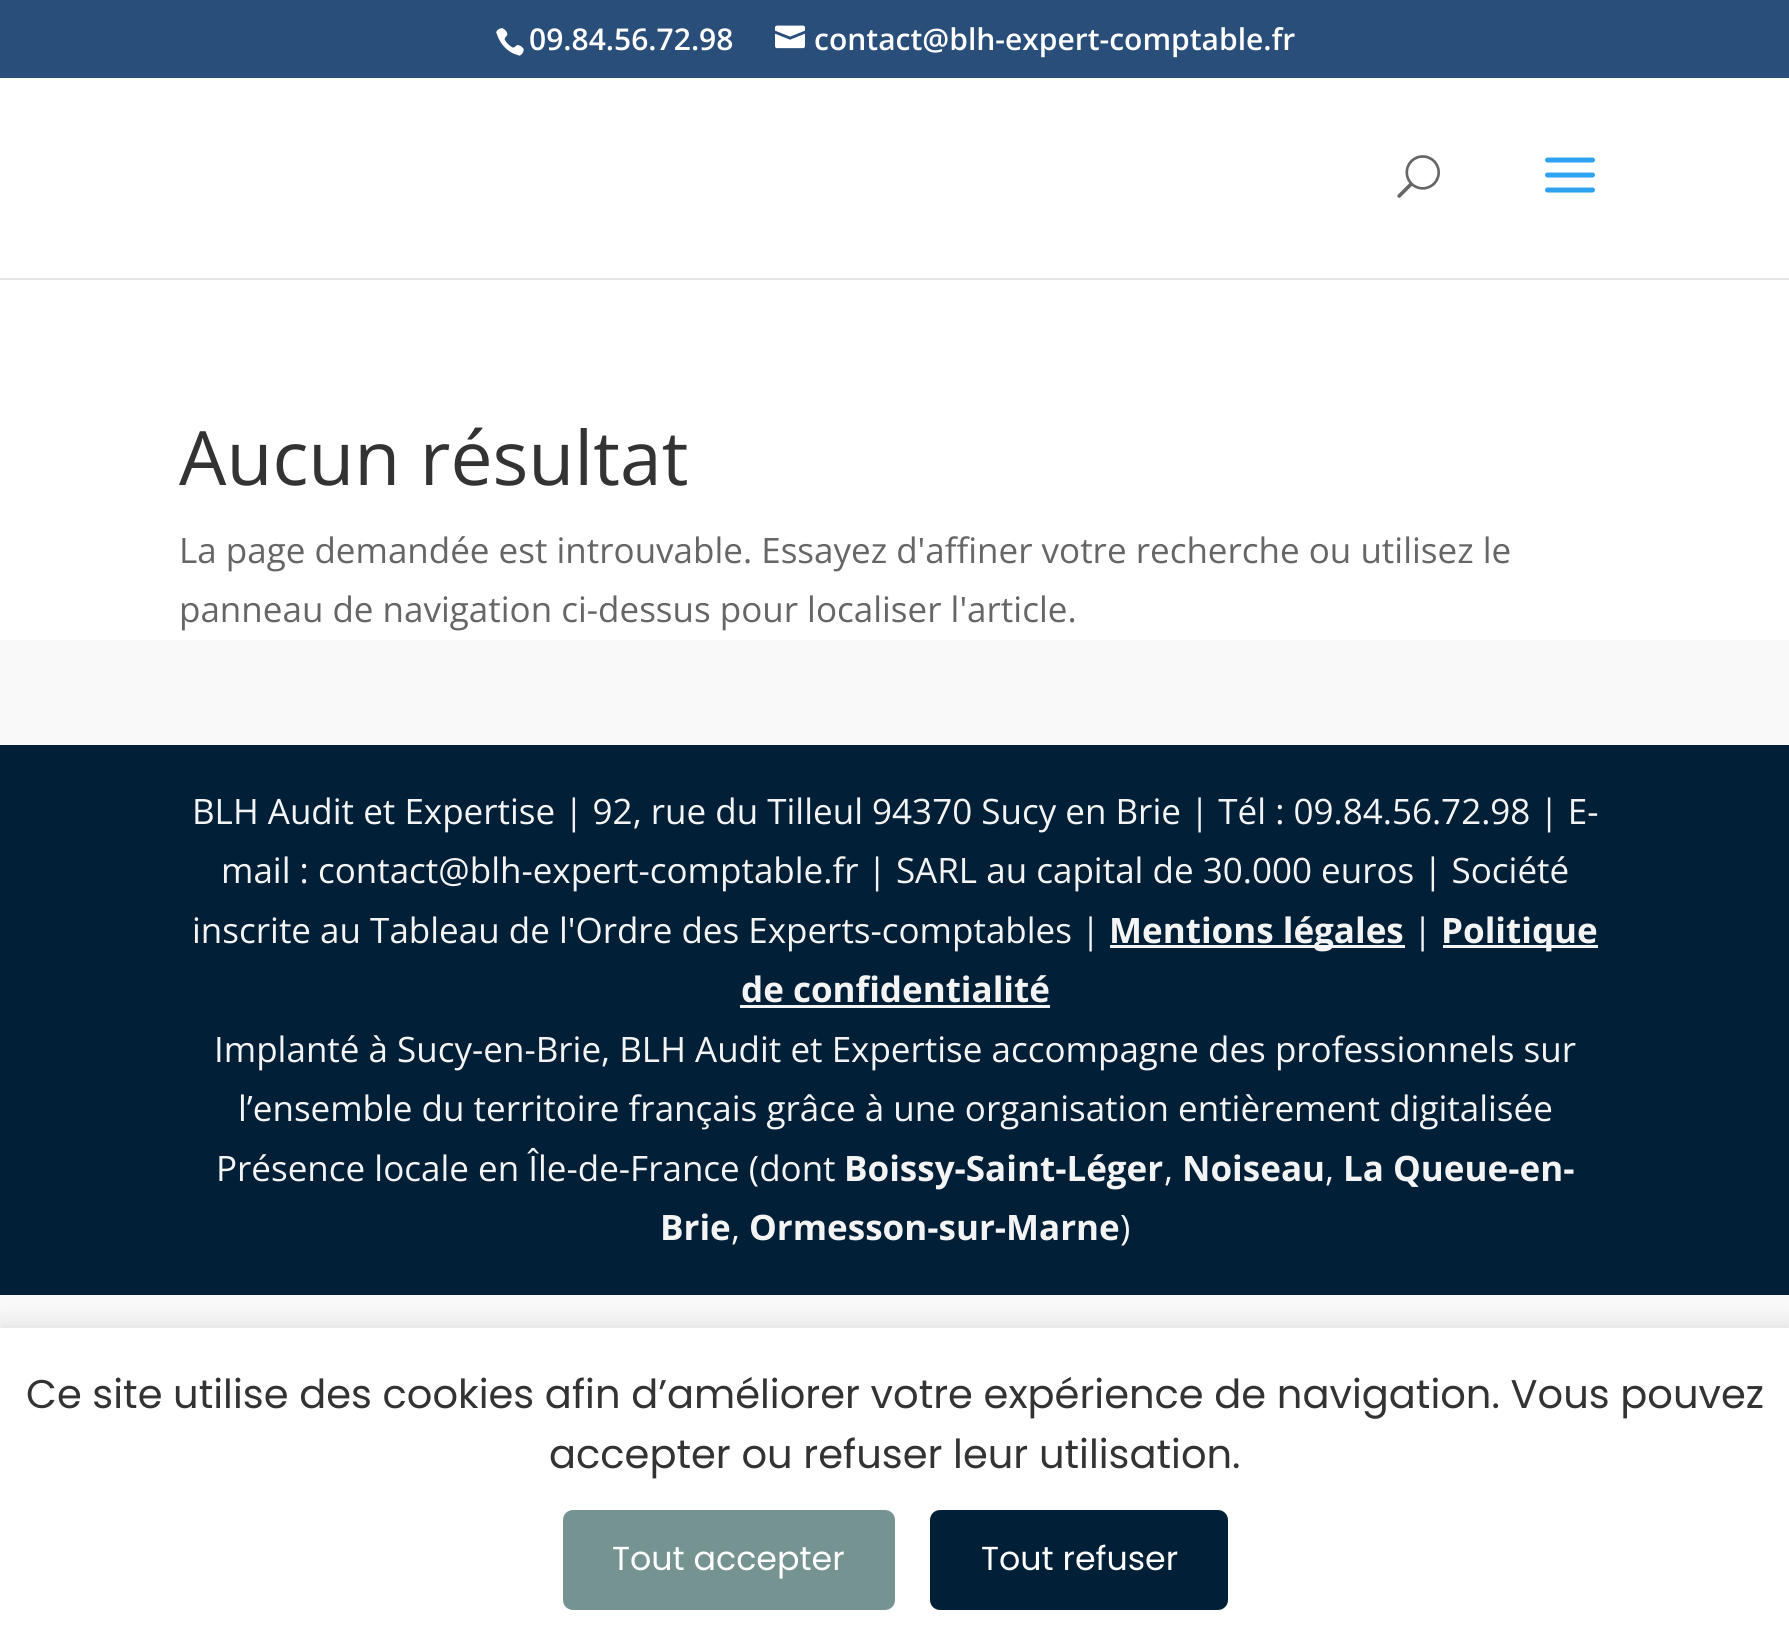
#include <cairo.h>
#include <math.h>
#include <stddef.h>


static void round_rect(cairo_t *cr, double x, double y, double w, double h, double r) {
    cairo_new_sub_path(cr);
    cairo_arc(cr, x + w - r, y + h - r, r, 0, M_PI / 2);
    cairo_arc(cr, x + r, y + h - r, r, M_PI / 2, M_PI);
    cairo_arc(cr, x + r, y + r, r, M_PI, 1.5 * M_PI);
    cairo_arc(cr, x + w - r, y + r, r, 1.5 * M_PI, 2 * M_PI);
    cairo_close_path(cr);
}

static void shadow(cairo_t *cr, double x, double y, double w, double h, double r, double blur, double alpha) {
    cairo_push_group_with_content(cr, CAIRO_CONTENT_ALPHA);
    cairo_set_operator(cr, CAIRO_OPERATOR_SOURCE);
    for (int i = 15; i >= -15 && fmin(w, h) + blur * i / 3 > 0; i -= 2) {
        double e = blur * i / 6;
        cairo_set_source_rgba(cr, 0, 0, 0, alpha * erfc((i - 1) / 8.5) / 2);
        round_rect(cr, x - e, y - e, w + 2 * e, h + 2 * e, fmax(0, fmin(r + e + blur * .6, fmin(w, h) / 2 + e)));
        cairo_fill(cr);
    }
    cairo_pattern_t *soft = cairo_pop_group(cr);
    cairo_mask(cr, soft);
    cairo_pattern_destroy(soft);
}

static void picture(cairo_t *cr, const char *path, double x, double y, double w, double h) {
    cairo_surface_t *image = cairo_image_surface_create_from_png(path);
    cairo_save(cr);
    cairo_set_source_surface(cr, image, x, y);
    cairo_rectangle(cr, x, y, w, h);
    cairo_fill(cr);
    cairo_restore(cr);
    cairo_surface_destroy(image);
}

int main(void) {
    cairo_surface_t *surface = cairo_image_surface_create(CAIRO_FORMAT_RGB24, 1789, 1647);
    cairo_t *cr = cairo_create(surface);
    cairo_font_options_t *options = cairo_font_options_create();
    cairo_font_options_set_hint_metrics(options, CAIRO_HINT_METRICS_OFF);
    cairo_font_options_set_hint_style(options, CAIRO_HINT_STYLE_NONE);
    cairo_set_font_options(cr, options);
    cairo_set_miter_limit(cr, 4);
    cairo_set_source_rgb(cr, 0.976, 0.976, 0.976);
    cairo_paint(cr);
    cairo_set_source_rgb(cr, 0.165, 0.306, 0.478);
    cairo_rectangle(cr, 0, 0, 1789, 78);
    cairo_fill(cr);
    picture(cr, "img1.png", 496, 28, 28, 28);
    cairo_select_font_face(cr, "Open Sans SemiBold", CAIRO_FONT_SLANT_NORMAL, CAIRO_FONT_WEIGHT_NORMAL);
    cairo_set_font_size(cr, 30);
    cairo_set_source_rgb(cr, 1, 1, 1);
    cairo_move_to(cr, 529, 50);
    cairo_show_text(cr, "09.84.56.72.98");
    picture(cr, "img2.png", 775, 25, 30, 24);
    cairo_move_to(cr, 814, 50);
    cairo_show_text(cr, "contact@blh-expert-comptable.fr");
    cairo_set_source_rgb(cr, 0.902, 0.902, 0.902);
    cairo_rectangle(cr, 0, 278, 1789, 2);
    cairo_fill(cr);
    cairo_set_source_rgb(cr, 1, 1, 1);
    cairo_rectangle(cr, 0, 78, 1789, 200);
    cairo_fill(cr);
    picture(cr, "img3.png", 1397, 155, 43, 43);
    picture(cr, "img4.png", 1545, 157, 50, 36);
    cairo_rectangle(cr, 0, 280, 1789, 360);
    cairo_fill(cr);
    cairo_select_font_face(cr, "Open Sans", CAIRO_FONT_SLANT_NORMAL, CAIRO_FONT_WEIGHT_NORMAL);
    cairo_set_font_size(cr, 75);
    cairo_set_source_rgb(cr, 0.2, 0.2, 0.2);
    cairo_move_to(cr, 179, 485);
    cairo_show_text(cr, "Aucun résultat");
    cairo_set_font_size(cr, 35);
    cairo_set_source_rgb(cr, 0.4, 0.4, 0.4);
    cairo_move_to(cr, 179, 563);
    cairo_show_text(cr, "La page demandée est introuvable. Essayez d'affiner votre recherche ou utilisez le");
    cairo_move_to(cr, 179, 622);
    cairo_show_text(cr, "panneau de navigation ci-dessus pour localiser l'article.");
    cairo_set_source_rgb(cr, 0.004, 0.125, 0.216);
    cairo_rectangle(cr, 0, 745, 1789, 550);
    cairo_fill(cr);
    cairo_set_source_rgb(cr, 0.957, 0.957, 0.957);
    cairo_move_to(cr, 192, 824);
    cairo_show_text(cr, "BLH Audit et Expertise | 92, rue du Tilleul 94370 Sucy en Brie | Tél : 09.84.56.72.98 | E-");
    cairo_move_to(cr, 221, 883);
    cairo_show_text(cr, "mail : contact@blh-expert-comptable.fr | SARL au capital de 30.000 euros | Société");
    cairo_move_to(cr, 192, 943);
    cairo_show_text(cr, "inscrite au Tableau de l'Ordre des Experts-comptables |");
    cairo_rectangle(cr, 1110, 945, 295, 3);
    cairo_fill(cr);
    cairo_select_font_face(cr, "Open Sans", CAIRO_FONT_SLANT_NORMAL, CAIRO_FONT_WEIGHT_BOLD);
    cairo_move_to(cr, 1109, 943);
    cairo_show_text(cr, "Mentions légales");
    cairo_select_font_face(cr, "Open Sans", CAIRO_FONT_SLANT_NORMAL, CAIRO_FONT_WEIGHT_NORMAL);
    cairo_move_to(cr, 1413, 943);
    cairo_show_text(cr, "|");
    cairo_rectangle(cr, 1443, 945, 155, 3);
    cairo_fill(cr);
    cairo_select_font_face(cr, "Open Sans", CAIRO_FONT_SLANT_NORMAL, CAIRO_FONT_WEIGHT_BOLD);
    cairo_move_to(cr, 1441, 943);
    cairo_show_text(cr, "Politique");
    cairo_move_to(cr, 741, 1002);
    cairo_show_text(cr, "de confidentialité");
    cairo_rectangle(cr, 740, 1005, 310, 3);
    cairo_fill(cr);
    cairo_select_font_face(cr, "Open Sans", CAIRO_FONT_SLANT_NORMAL, CAIRO_FONT_WEIGHT_NORMAL);
    cairo_move_to(cr, 214, 1062);
    cairo_show_text(cr, "Implanté à Sucy-en-Brie, BLH Audit et Expertise accompagne des professionnels sur");
    cairo_move_to(cr, 238, 1121);
    cairo_show_text(cr, "l’ensemble du territoire français grâce à une organisation entièrement digitalisée");
    cairo_move_to(cr, 216, 1181);
    cairo_show_text(cr, "Présence locale en Île-de-France (dont");
    cairo_select_font_face(cr, "Open Sans", CAIRO_FONT_SLANT_NORMAL, CAIRO_FONT_WEIGHT_BOLD);
    cairo_move_to(cr, 844, 1181);
    cairo_show_text(cr, "Boissy-Saint-Léger");
    cairo_select_font_face(cr, "Open Sans", CAIRO_FONT_SLANT_NORMAL, CAIRO_FONT_WEIGHT_NORMAL);
    cairo_move_to(cr, 1164, 1181);
    cairo_show_text(cr, ",");
    cairo_select_font_face(cr, "Open Sans", CAIRO_FONT_SLANT_NORMAL, CAIRO_FONT_WEIGHT_BOLD);
    cairo_move_to(cr, 1182, 1181);
    cairo_show_text(cr, "Noiseau");
    cairo_select_font_face(cr, "Open Sans", CAIRO_FONT_SLANT_NORMAL, CAIRO_FONT_WEIGHT_NORMAL);
    cairo_move_to(cr, 1325, 1181);
    cairo_show_text(cr, ",");
    cairo_select_font_face(cr, "Open Sans", CAIRO_FONT_SLANT_NORMAL, CAIRO_FONT_WEIGHT_BOLD);
    cairo_move_to(cr, 1343, 1181);
    cairo_show_text(cr, "La Queue-en-");
    cairo_move_to(cr, 660, 1240);
    cairo_show_text(cr, "Brie");
    cairo_select_font_face(cr, "Open Sans", CAIRO_FONT_SLANT_NORMAL, CAIRO_FONT_WEIGHT_NORMAL);
    cairo_move_to(cr, 731, 1240);
    cairo_show_text(cr, ",");
    cairo_select_font_face(cr, "Open Sans", CAIRO_FONT_SLANT_NORMAL, CAIRO_FONT_WEIGHT_BOLD);
    cairo_move_to(cr, 749, 1240);
    cairo_show_text(cr, "Ormesson-sur-Marne");
    cairo_select_font_face(cr, "Open Sans", CAIRO_FONT_SLANT_NORMAL, CAIRO_FONT_WEIGHT_NORMAL);
    cairo_move_to(cr, 1120, 1240);
    cairo_show_text(cr, ")");
    cairo_set_source_rgb(cr, 0, 0, 0);
    shadow(cr, 0, 1323, 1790, 320, 0, 10, 0.1);
    cairo_set_source_rgb(cr, 1, 1, 1);
    cairo_rectangle(cr, 0, 1328, 1789, 319);
    cairo_fill(cr);
    cairo_select_font_face(cr, "Poppins", CAIRO_FONT_SLANT_NORMAL, CAIRO_FONT_WEIGHT_NORMAL);
    cairo_set_font_size(cr, 40);
    cairo_set_source_rgb(cr, 0.2, 0.2, 0.2);
    cairo_move_to(cr, 26, 1408);
    cairo_show_text(cr, "Ce site utilise des cookies afin d’améliorer votre expérience de navigation. Vous pouvez");
    cairo_move_to(cr, 549, 1468);
    cairo_show_text(cr, "accepter ou refuser leur utilisation.");
    cairo_set_source_rgb(cr, 0.459, 0.58, 0.569);
    round_rect(cr, 563, 1510, 332, 100, 10);
    cairo_fill(cr);
    cairo_set_font_size(cr, 33.25);
    cairo_set_source_rgb(cr, 1, 1, 1);
    cairo_move_to(cr, 612, 1570);
    cairo_show_text(cr, "Tout accepter");
    cairo_set_source_rgb(cr, 0.004, 0.125, 0.216);
    round_rect(cr, 930, 1510, 298, 100, 10);
    cairo_fill(cr);
    cairo_set_source_rgb(cr, 1, 1, 1);
    cairo_move_to(cr, 981, 1570);
    cairo_show_text(cr, "Tout refuser");
    cairo_surface_write_to_png(surface, "page.png");
    cairo_font_options_destroy(options);
    cairo_destroy(cr);
    cairo_surface_destroy(surface);
    return 0;
}
